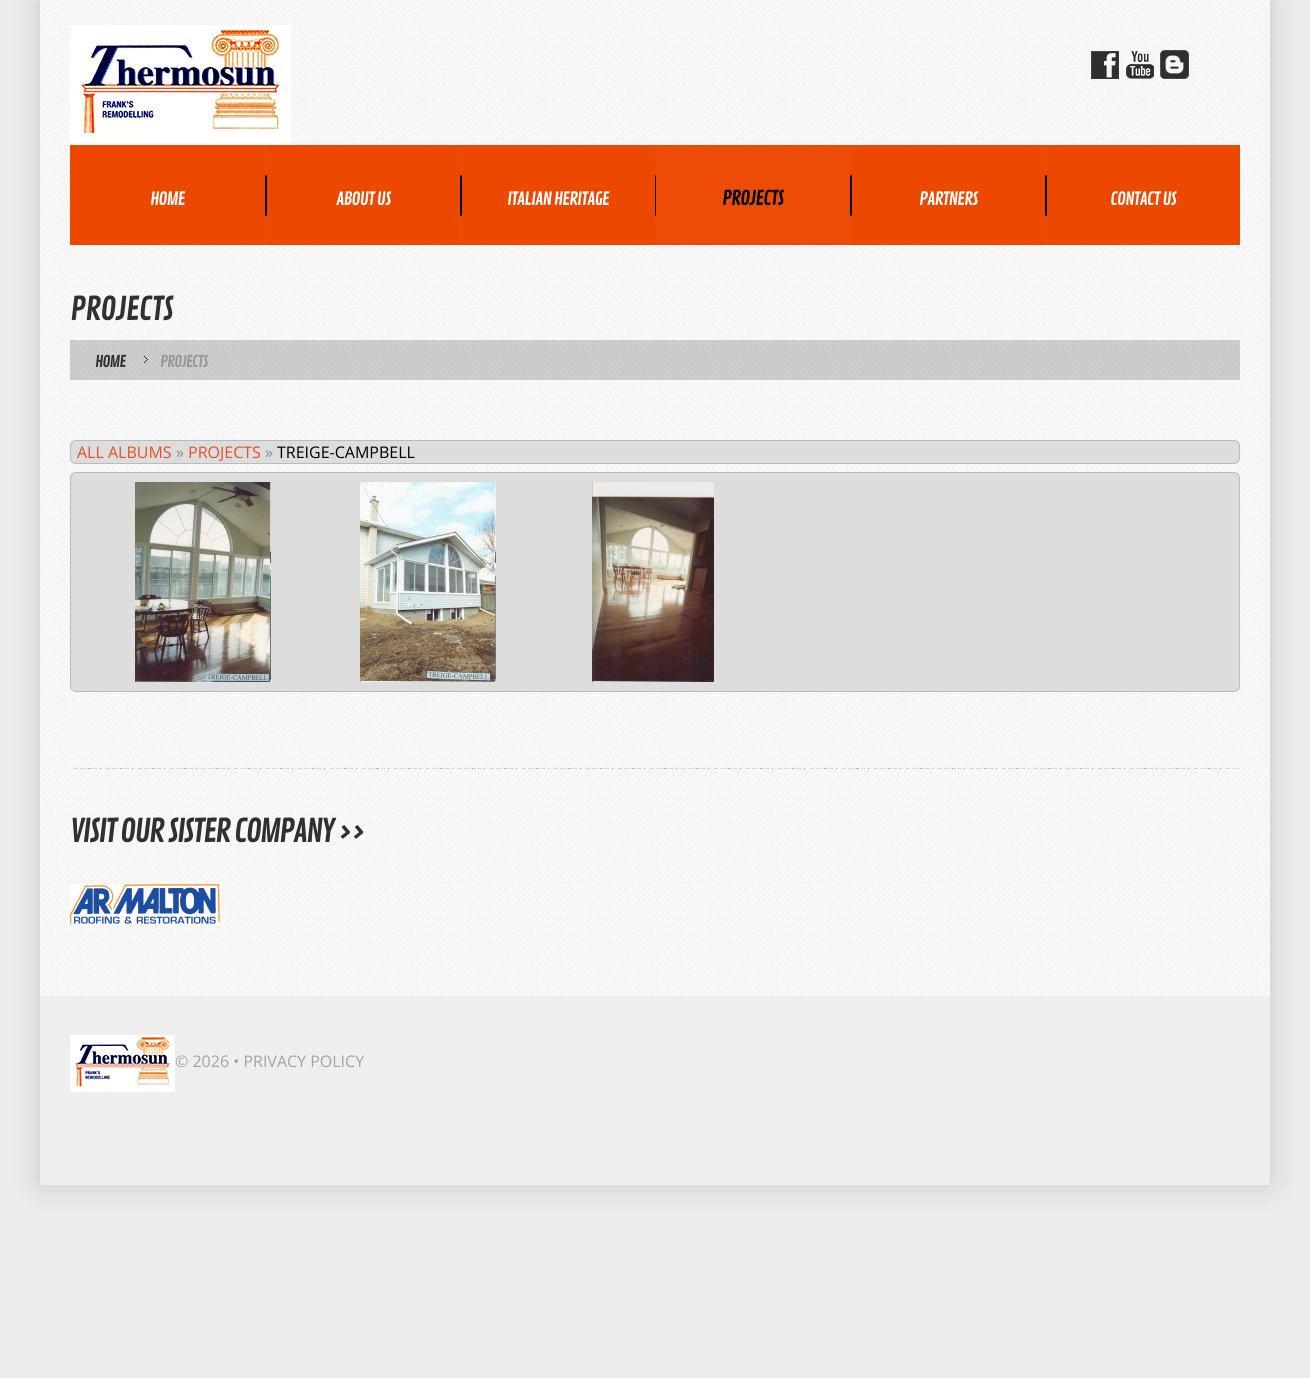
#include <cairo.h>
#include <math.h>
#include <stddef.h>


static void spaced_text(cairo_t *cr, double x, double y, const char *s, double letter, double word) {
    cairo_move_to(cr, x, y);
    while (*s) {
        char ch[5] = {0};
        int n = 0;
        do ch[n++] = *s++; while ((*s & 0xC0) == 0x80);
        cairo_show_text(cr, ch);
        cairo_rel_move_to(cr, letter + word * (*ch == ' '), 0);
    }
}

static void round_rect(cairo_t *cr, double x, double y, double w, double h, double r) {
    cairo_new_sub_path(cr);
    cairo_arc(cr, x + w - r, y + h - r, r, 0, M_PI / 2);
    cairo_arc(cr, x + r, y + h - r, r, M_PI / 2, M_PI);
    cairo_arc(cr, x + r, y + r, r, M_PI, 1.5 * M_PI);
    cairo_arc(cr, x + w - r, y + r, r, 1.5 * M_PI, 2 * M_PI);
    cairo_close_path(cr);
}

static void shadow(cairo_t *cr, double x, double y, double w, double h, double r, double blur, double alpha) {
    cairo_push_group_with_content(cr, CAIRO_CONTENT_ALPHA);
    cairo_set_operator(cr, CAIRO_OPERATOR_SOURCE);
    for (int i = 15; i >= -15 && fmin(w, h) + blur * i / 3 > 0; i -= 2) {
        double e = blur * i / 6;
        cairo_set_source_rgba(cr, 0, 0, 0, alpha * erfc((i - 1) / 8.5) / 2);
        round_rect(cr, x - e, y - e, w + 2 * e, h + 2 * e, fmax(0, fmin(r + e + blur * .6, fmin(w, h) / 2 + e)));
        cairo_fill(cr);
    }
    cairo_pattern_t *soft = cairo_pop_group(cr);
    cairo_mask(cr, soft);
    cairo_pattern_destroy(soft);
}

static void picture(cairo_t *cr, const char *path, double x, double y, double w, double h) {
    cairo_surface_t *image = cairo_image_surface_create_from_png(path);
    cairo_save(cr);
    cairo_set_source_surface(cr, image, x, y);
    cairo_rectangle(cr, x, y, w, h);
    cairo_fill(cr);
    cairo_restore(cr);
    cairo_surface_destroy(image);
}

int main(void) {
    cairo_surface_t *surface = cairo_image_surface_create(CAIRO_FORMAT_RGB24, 1310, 1378);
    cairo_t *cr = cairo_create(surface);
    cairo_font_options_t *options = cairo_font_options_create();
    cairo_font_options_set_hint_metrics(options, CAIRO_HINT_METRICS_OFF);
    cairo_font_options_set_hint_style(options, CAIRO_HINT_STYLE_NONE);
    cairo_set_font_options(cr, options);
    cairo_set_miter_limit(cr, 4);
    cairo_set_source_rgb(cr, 0.922, 0.922, 0.922);
    cairo_paint(cr);
    cairo_set_source_rgb(cr, 0, 0, 0);
    shadow(cr, 40, 0, 1230, 1185, 0, 15, 0.15);
    picture(cr, "img1.png", 40, 0, 1230, 768);
    picture(cr, "img2.png", 70, 25, 221, 120);
    picture(cr, "img3.png", 1091, 51, 28, 28);
    picture(cr, "img4.png", 1126, 51, 28, 28);
    picture(cr, "img5.png", 1160, 50, 29, 29);
    cairo_set_source_rgb(cr, 0.925, 0.282, 0);
    cairo_rectangle(cr, 70, 145, 1170, 100);
    cairo_fill(cr);
    cairo_select_font_face(cr, "Contrail One", CAIRO_FONT_SLANT_NORMAL, CAIRO_FONT_WEIGHT_NORMAL);
    cairo_set_font_size(cr, 18);
    cairo_set_source_rgb(cr, 1, 1, 1);
    spaced_text(cr, 150, 205, "HOME", -1, 0);
    picture(cr, "img6.png", 265, 146, 2, 98);
    spaced_text(cr, 336, 205, "ABOUT US", -1, 0);
    picture(cr, "img6.png", 460, 146, 2, 98);
    spaced_text(cr, 507, 205, "ITALIAN HERITAGE", -1, 0);
    picture(cr, "img7.png", 655, 146, 1, 98);
    cairo_set_source_rgb(cr, 0.925, 0.298, 0.024);
    cairo_rectangle(cr, 656, 145, 194, 100);
    cairo_fill(cr);
    cairo_set_font_size(cr, 20);
    cairo_set_source_rgb(cr, 0, 0, 0);
    spaced_text(cr, 722, 205, "PROJECTS", -1, 0);
    picture(cr, "img6.png", 850, 146, 2, 98);
    cairo_set_font_size(cr, 18);
    cairo_set_source_rgb(cr, 1, 1, 1);
    spaced_text(cr, 919, 205, "PARTNERS", -1, 0);
    picture(cr, "img6.png", 1045, 146, 2, 98);
    spaced_text(cr, 1110, 205, "CONTACT US", -1, 0);
    cairo_set_font_size(cr, 32);
    cairo_set_source_rgb(cr, 0.188, 0.188, 0.188);
    spaced_text(cr, 70, 320, "PROJECTS", -1, 0);
    cairo_set_source_rgba(cr, 0.118, 0.118, 0.137, 0.2);
    cairo_rectangle(cr, 70, 340, 1170, 40);
    cairo_fill(cr);
    cairo_set_font_size(cr, 16);
    cairo_set_source_rgb(cr, 0.188, 0.188, 0.188);
    spaced_text(cr, 95, 367, "HOME", -1, 0);
    picture(cr, "img8.png", 144, 356, 4, 7);
    cairo_set_source_rgb(cr, 0.592, 0.592, 0.592);
    spaced_text(cr, 160, 367, "PROJECTS", -1, 0);
    cairo_set_source_rgb(cr, 0.867, 0.867, 0.867);
    round_rect(cr, 70.5, 440.5, 1169, 23, 5.5);
    cairo_fill_preserve(cr);
    cairo_set_source_rgb(cr, 0.733, 0.733, 0.733);
    cairo_set_line_width(cr, 1);
    cairo_stroke(cr);
    cairo_select_font_face(cr, "Open Sans", CAIRO_FONT_SLANT_NORMAL, CAIRO_FONT_WEIGHT_NORMAL);
    cairo_set_source_rgb(cr, 0.902, 0.31, 0.161);
    cairo_move_to(cr, 77, 458);
    cairo_show_text(cr, "ALL ALBUMS");
    cairo_set_source_rgb(cr, 0.541, 0.541, 0.541);
    cairo_move_to(cr, 176, 458);
    cairo_show_text(cr, "»");
    cairo_set_source_rgb(cr, 0.902, 0.31, 0.161);
    cairo_move_to(cr, 188, 458);
    cairo_show_text(cr, "PROJECTS");
    cairo_set_source_rgb(cr, 0.541, 0.541, 0.541);
    cairo_move_to(cr, 265, 458);
    cairo_show_text(cr, "»");
    cairo_set_source_rgb(cr, 0, 0, 0);
    cairo_move_to(cr, 277, 458);
    cairo_show_text(cr, "TREIGE-CAMPBELL");
    cairo_set_source_rgb(cr, 0.867, 0.867, 0.867);
    round_rect(cr, 70.5, 472.5, 1169, 219, 5.5);
    cairo_fill_preserve(cr);
    cairo_set_source_rgb(cr, 0.733, 0.733, 0.733);
    cairo_stroke(cr);
    picture(cr, "img9.png", 135, 482, 136, 200);
    picture(cr, "img10.png", 360, 482, 136, 200);
    picture(cr, "img11.png", 592, 482, 122, 200);
    cairo_set_source_rgb(cr, 0.933, 0.933, 0.933);
    cairo_rectangle(cr, 40, 996, 1230, 189);
    cairo_fill(cr);
    cairo_set_source_rgb(cr, 0.965, 0.965, 0.965);
    cairo_rectangle(cr, 40, 768, 1230, 228);
    cairo_fill(cr);
    picture(cr, "img12.png", 43, 768, 1196, 228);
    cairo_set_source_rgb(cr, 0.933, 0.933, 0.933);
    cairo_rectangle(cr, 70, 768, 1170, 1);
    cairo_fill(cr);
    picture(cr, "img13.png", 70, 768, 1169, 1);
    cairo_select_font_face(cr, "Contrail One", CAIRO_FONT_SLANT_NORMAL, CAIRO_FONT_WEIGHT_NORMAL);
    cairo_set_font_size(cr, 32);
    cairo_set_source_rgb(cr, 0.188, 0.188, 0.188);
    spaced_text(cr, 70, 842, "VISIT OUR SISTER COMPANY >>", -2, 0);
    picture(cr, "img14.png", 70, 884, 150, 41);
    picture(cr, "img15.png", 1243, 768, 26, 228);
    picture(cr, "img16.png", 70, 1035, 105, 57);
    cairo_select_font_face(cr, "Open Sans", CAIRO_FONT_SLANT_NORMAL, CAIRO_FONT_WEIGHT_NORMAL);
    cairo_set_font_size(cr, 16);
    cairo_set_source_rgb(cr, 0.647, 0.635, 0.635);
    cairo_move_to(cr, 175, 1067);
    cairo_show_text(cr, "© 2026 • PRIVACY POLICY");
    cairo_surface_write_to_png(surface, "page.png");
    cairo_font_options_destroy(options);
    cairo_destroy(cr);
    cairo_surface_destroy(surface);
    return 0;
}
